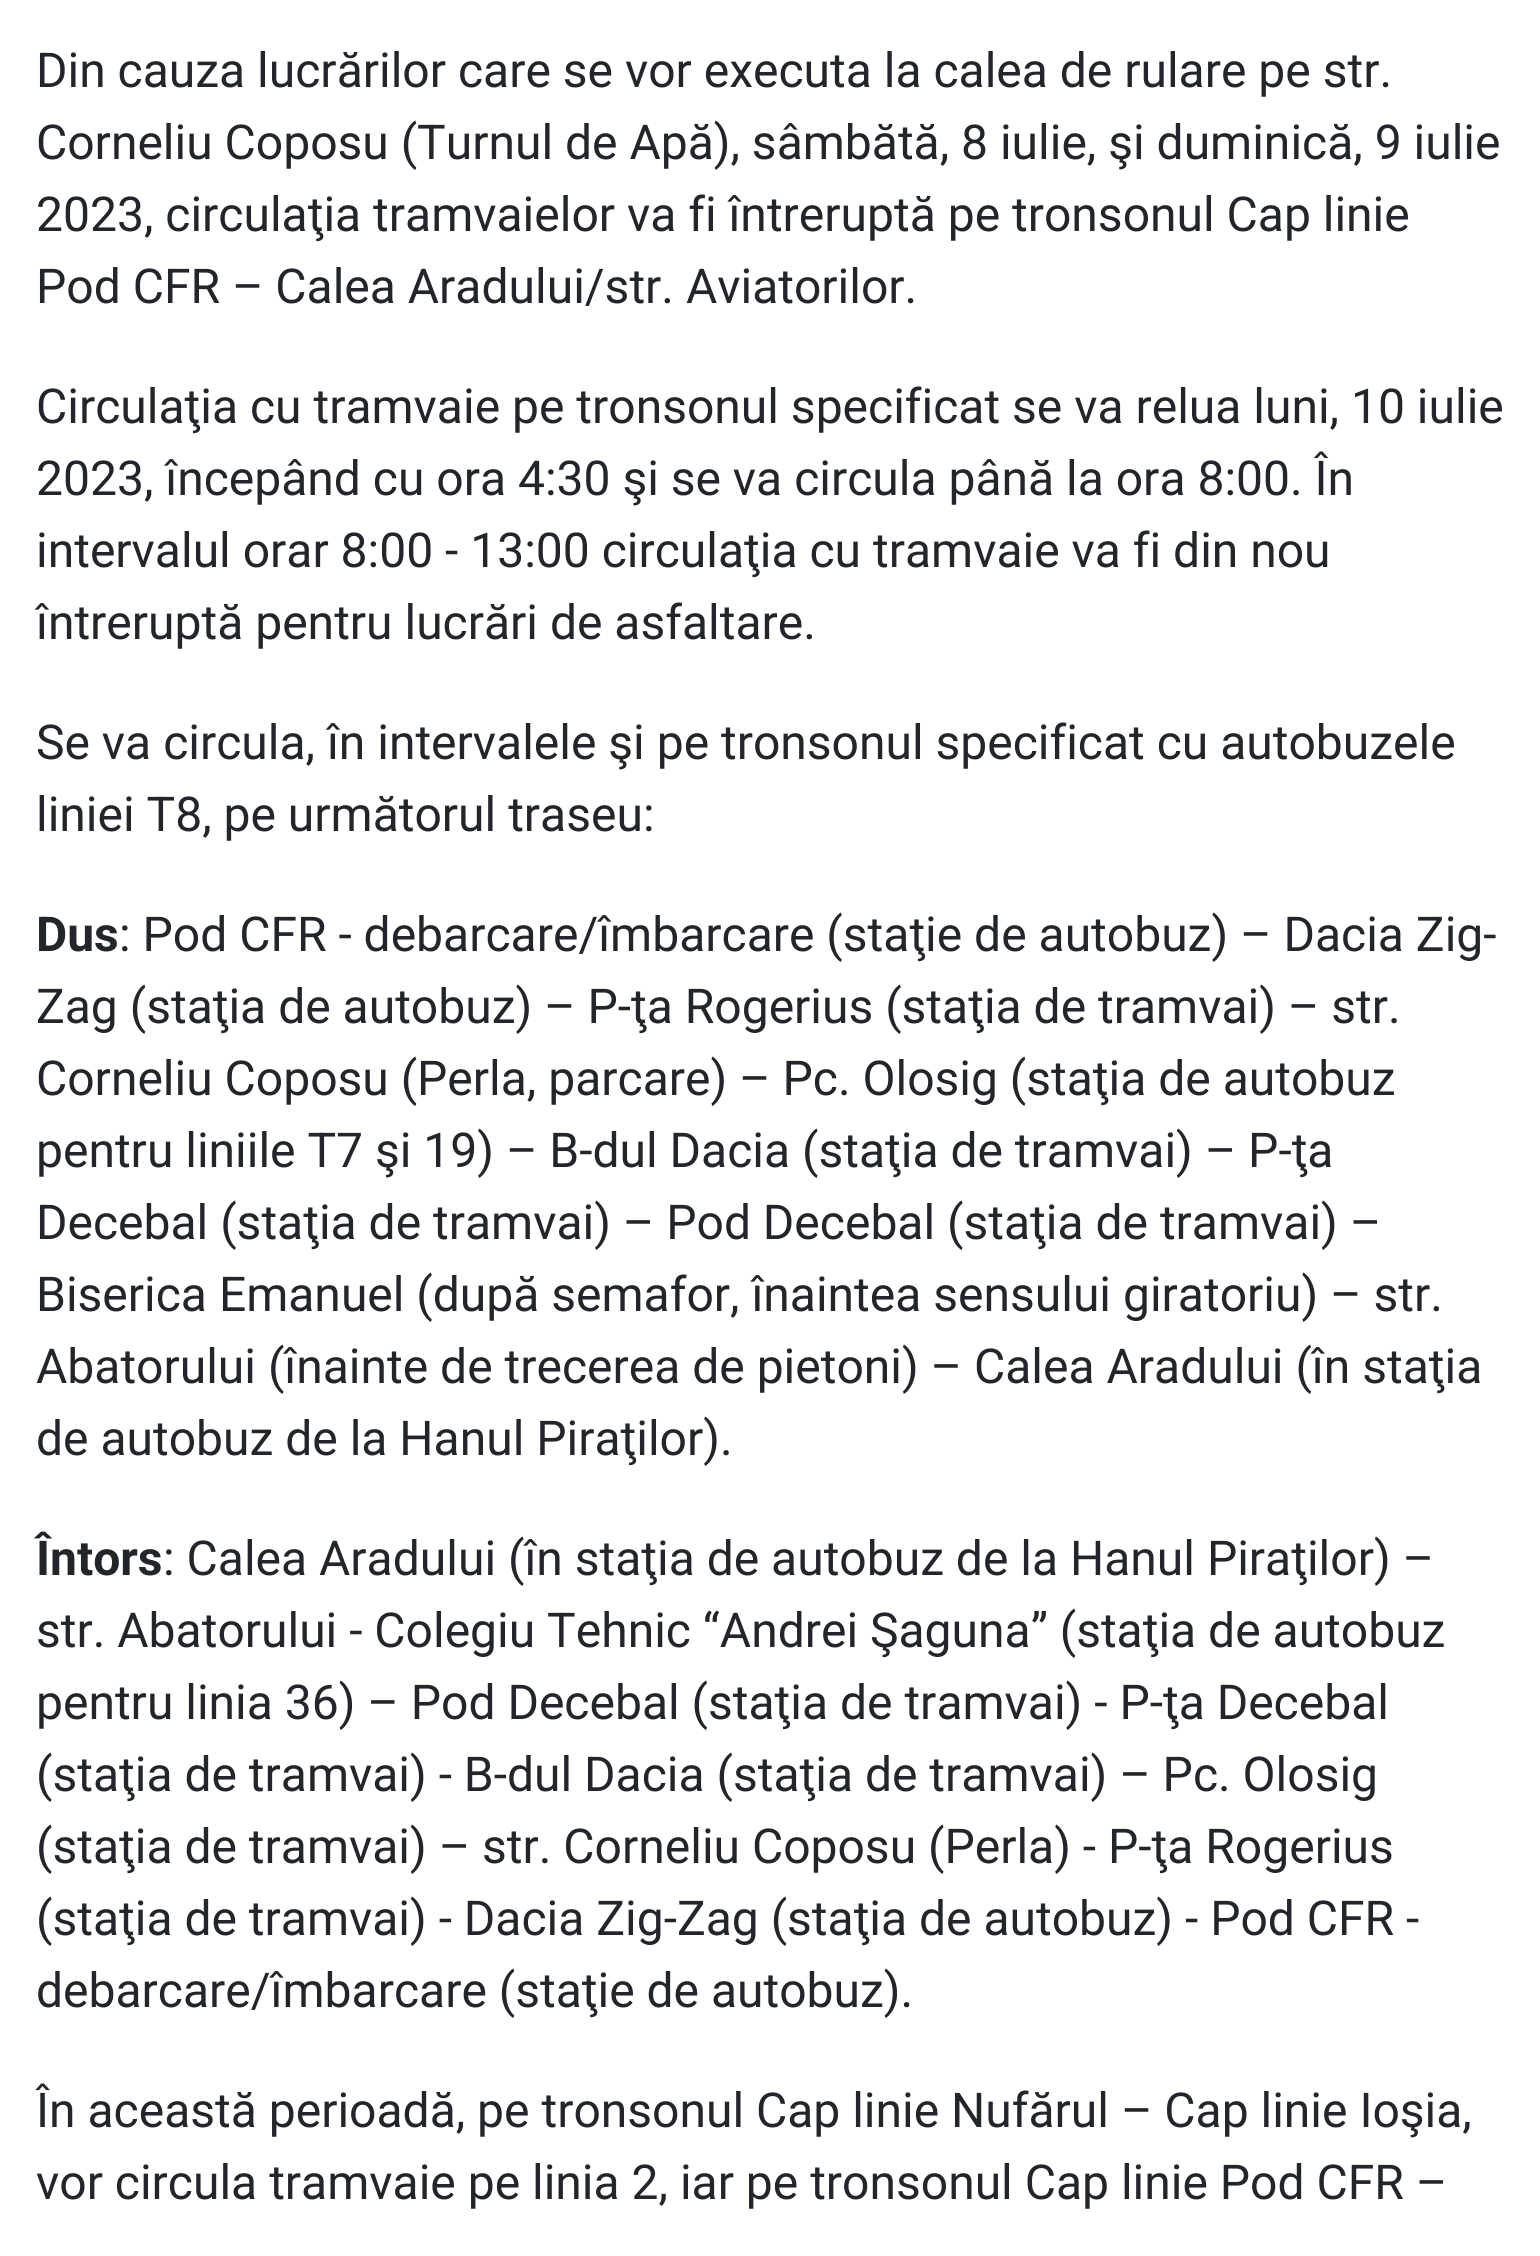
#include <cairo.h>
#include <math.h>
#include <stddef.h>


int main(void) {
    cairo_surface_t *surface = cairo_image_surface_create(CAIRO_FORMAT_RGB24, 1540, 2256);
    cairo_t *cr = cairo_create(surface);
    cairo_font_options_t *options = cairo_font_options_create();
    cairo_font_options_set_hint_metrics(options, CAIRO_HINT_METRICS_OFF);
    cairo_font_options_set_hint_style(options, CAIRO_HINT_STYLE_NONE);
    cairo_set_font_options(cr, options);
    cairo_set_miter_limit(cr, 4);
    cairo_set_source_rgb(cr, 1, 1, 1);
    cairo_paint(cr);
    cairo_select_font_face(cr, "Roboto", CAIRO_FONT_SLANT_NORMAL, CAIRO_FONT_WEIGHT_NORMAL);
    cairo_set_font_size(cr, 48);
    cairo_set_source_rgb(cr, 0.133, 0.149, 0.165);
    cairo_move_to(cr, 36, 87);
    cairo_show_text(cr, "Din cauza lucrărilor care se vor executa la calea de rulare pe str.");
    cairo_move_to(cr, 36, 159);
    cairo_show_text(cr, "Corneliu Coposu (Turnul de Apă), sâmbătă, 8 iulie, şi duminică, 9 iulie");
    cairo_move_to(cr, 36, 231);
    cairo_show_text(cr, "2023, circulaţia tramvaielor va fi întreruptă pe tronsonul Cap linie");
    cairo_move_to(cr, 36, 303);
    cairo_show_text(cr, "Pod CFR – Calea Aradului/str. Aviatorilor.");
    cairo_move_to(cr, 36, 423);
    cairo_show_text(cr, "Circulaţia cu tramvaie pe tronsonul specificat se va relua luni, 10 iulie");
    cairo_move_to(cr, 36, 495);
    cairo_show_text(cr, "2023, începând cu ora 4:30 şi se va circula până la ora 8:00. În");
    cairo_move_to(cr, 36, 567);
    cairo_show_text(cr, "intervalul orar 8:00 - 13:00 circulaţia cu tramvaie va fi din nou");
    cairo_move_to(cr, 36, 639);
    cairo_show_text(cr, "întreruptă pentru lucrări de asfaltare.");
    cairo_move_to(cr, 36, 759);
    cairo_show_text(cr, "Se va circula, în intervalele şi pe tronsonul specificat cu autobuzele");
    cairo_move_to(cr, 36, 831);
    cairo_show_text(cr, "liniei T8, pe următorul traseu:");
    cairo_select_font_face(cr, "Roboto", CAIRO_FONT_SLANT_NORMAL, CAIRO_FONT_WEIGHT_BOLD);
    cairo_move_to(cr, 36, 951);
    cairo_show_text(cr, "Dus");
    cairo_select_font_face(cr, "Roboto", CAIRO_FONT_SLANT_NORMAL, CAIRO_FONT_WEIGHT_NORMAL);
    cairo_move_to(cr, 119, 951);
    cairo_show_text(cr, ": Pod CFR - debarcare/îmbarcare (staţie de autobuz) – Dacia Zig-");
    cairo_move_to(cr, 36, 1023);
    cairo_show_text(cr, "Zag (staţia de autobuz) – P-ţa Rogerius (staţia de tramvai) – str.");
    cairo_move_to(cr, 36, 1095);
    cairo_show_text(cr, "Corneliu Coposu (Perla, parcare) – Pc. Olosig (staţia de autobuz");
    cairo_move_to(cr, 36, 1167);
    cairo_show_text(cr, "pentru liniile T7 şi 19) – B-dul Dacia (staţia de tramvai) – P-ţa");
    cairo_move_to(cr, 36, 1239);
    cairo_show_text(cr, "Decebal (staţia de tramvai) – Pod Decebal (staţia de tramvai) –");
    cairo_move_to(cr, 36, 1311);
    cairo_show_text(cr, "Biserica Emanuel (după semafor, înaintea sensului giratoriu) – str.");
    cairo_move_to(cr, 36, 1383);
    cairo_show_text(cr, "Abatorului (înainte de trecerea de pietoni) – Calea Aradului (în staţia");
    cairo_move_to(cr, 36, 1455);
    cairo_show_text(cr, "de autobuz de la Hanul Piraţilor).");
    cairo_select_font_face(cr, "Roboto", CAIRO_FONT_SLANT_NORMAL, CAIRO_FONT_WEIGHT_BOLD);
    cairo_move_to(cr, 36, 1575);
    cairo_show_text(cr, "Întors");
    cairo_select_font_face(cr, "Roboto", CAIRO_FONT_SLANT_NORMAL, CAIRO_FONT_WEIGHT_NORMAL);
    cairo_move_to(cr, 163, 1575);
    cairo_show_text(cr, ": Calea Aradului (în staţia de autobuz de la Hanul Piraţilor) –");
    cairo_move_to(cr, 36, 1647);
    cairo_show_text(cr, "str. Abatorului - Colegiu Tehnic “Andrei Şaguna” (staţia de autobuz");
    cairo_move_to(cr, 36, 1719);
    cairo_show_text(cr, "pentru linia 36) – Pod Decebal (staţia de tramvai) - P-ţa Decebal");
    cairo_move_to(cr, 36, 1791);
    cairo_show_text(cr, "(staţia de tramvai) - B-dul Dacia (staţia de tramvai) – Pc. Olosig");
    cairo_move_to(cr, 36, 1863);
    cairo_show_text(cr, "(staţia de tramvai) – str. Corneliu Coposu (Perla) - P-ţa Rogerius");
    cairo_move_to(cr, 36, 1935);
    cairo_show_text(cr, "(staţia de tramvai) - Dacia Zig-Zag (staţia de autobuz) - Pod CFR -");
    cairo_move_to(cr, 36, 2007);
    cairo_show_text(cr, "debarcare/îmbarcare (staţie de autobuz).");
    cairo_move_to(cr, 36, 2127);
    cairo_show_text(cr, "În această perioadă, pe tronsonul Cap linie Nufărul – Cap linie Ioşia,");
    cairo_move_to(cr, 36, 2199);
    cairo_show_text(cr, "vor circula tramvaie pe linia 2, iar pe tronsonul Cap linie Pod CFR –");
    cairo_surface_write_to_png(surface, "page.png");
    cairo_font_options_destroy(options);
    cairo_destroy(cr);
    cairo_surface_destroy(surface);
    return 0;
}
